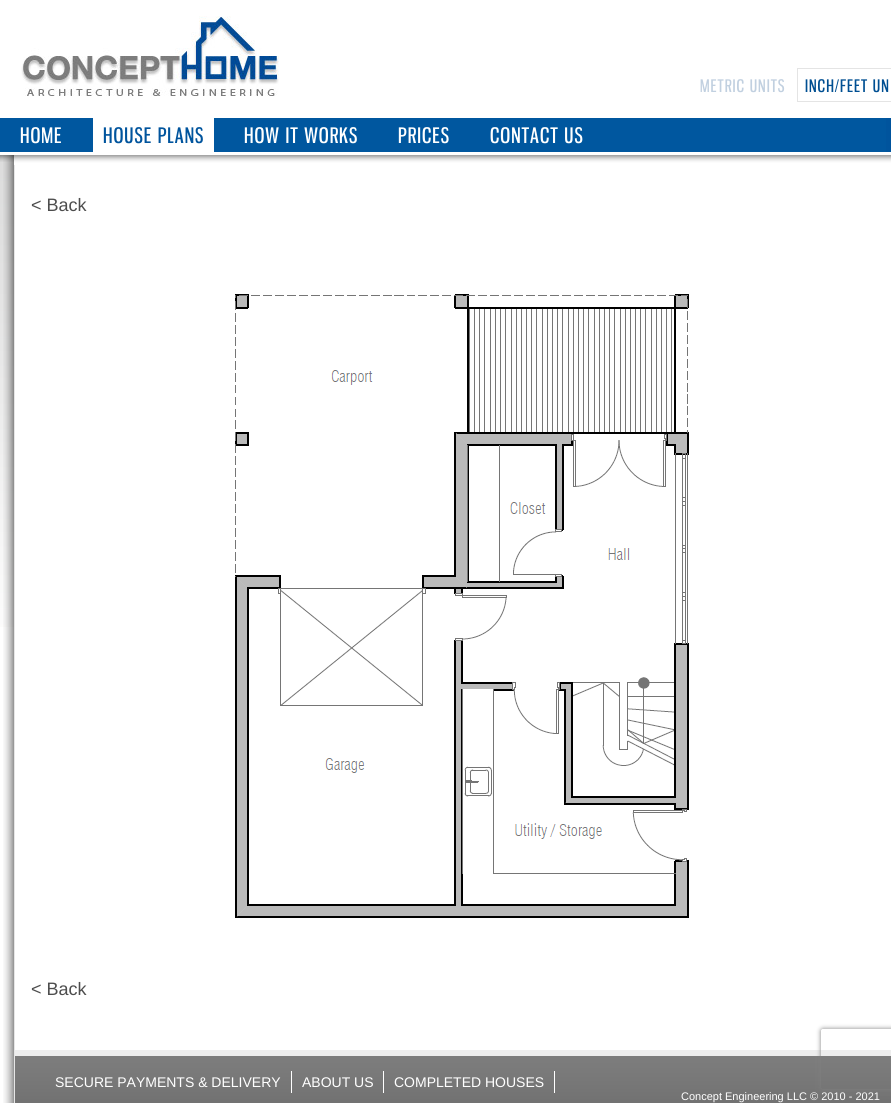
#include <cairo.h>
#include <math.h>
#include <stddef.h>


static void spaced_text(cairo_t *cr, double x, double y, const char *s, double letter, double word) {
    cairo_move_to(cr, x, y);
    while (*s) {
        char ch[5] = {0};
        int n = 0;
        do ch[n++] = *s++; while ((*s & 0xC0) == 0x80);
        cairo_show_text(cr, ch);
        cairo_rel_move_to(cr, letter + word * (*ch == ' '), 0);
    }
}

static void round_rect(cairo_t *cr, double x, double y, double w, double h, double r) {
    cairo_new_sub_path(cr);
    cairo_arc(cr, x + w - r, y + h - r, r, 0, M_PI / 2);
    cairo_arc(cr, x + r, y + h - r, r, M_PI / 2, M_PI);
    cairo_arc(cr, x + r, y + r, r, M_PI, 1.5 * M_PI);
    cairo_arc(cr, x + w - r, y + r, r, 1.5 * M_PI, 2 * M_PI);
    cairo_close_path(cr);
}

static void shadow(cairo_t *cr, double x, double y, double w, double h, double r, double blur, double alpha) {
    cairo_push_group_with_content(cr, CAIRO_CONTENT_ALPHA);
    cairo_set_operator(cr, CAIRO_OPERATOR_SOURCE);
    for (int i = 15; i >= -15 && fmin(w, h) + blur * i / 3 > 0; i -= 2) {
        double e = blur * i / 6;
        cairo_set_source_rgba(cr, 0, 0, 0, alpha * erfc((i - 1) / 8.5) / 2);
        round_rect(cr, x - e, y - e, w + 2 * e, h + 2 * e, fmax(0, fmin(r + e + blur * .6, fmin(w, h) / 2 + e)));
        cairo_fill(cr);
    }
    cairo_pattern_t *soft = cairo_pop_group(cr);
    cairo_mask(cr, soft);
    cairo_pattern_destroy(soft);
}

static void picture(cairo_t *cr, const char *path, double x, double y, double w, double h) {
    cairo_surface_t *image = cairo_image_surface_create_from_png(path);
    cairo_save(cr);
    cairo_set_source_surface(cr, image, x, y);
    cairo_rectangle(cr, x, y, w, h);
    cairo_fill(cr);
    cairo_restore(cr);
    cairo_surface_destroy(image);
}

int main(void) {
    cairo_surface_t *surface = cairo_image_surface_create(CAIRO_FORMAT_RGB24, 891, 1103);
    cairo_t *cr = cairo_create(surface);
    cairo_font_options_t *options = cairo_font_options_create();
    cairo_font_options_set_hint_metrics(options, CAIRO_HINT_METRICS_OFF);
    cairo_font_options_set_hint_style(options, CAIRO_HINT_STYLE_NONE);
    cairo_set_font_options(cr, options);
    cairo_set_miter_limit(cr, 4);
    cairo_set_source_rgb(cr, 1, 1, 1);
    cairo_paint(cr);
    picture(cr, "img1.png", 0, 155, 14, 472);
    picture(cr, "img2.png", 0, 155, 14, 7);
    picture(cr, "img3.png", 21, 16, 258, 80);
    cairo_select_font_face(cr, "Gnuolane", CAIRO_FONT_SLANT_NORMAL, CAIRO_FONT_WEIGHT_NORMAL);
    cairo_set_font_size(cr, 17);
    cairo_set_source_rgb(cr, 0.757, 0.816, 0.878);
    spaced_text(cr, 700, 92, "METRIC UNITS", 1, 0);
    cairo_rectangle(cr, 797.5, 68.5, 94, 33);
    cairo_set_source_rgb(cr, 0.894, 0.894, 0.894);
    cairo_set_line_width(cr, 1);
    cairo_stroke(cr);
    cairo_set_source_rgb(cr, 0, 0.31, 0.573);
    spaced_text(cr, 805, 92, "INCH/FEET UN", 1, 0);
    cairo_set_source_rgb(cr, 0, 0.329, 0.616);
    cairo_rectangle(cr, 886, 118, 5, 34);
    cairo_fill(cr);
    cairo_set_source_rgb(cr, 0, 0.341, 0.624);
    cairo_rectangle(cr, 0, 118, 886, 34);
    cairo_fill(cr);
    cairo_set_font_size(cr, 21);
    cairo_set_source_rgb(cr, 1, 1, 1);
    spaced_text(cr, 20, 143, "HOME", 1, 0);
    cairo_rectangle(cr, 93, 118, 121, 34);
    cairo_fill(cr);
    cairo_set_source_rgb(cr, 0, 0.329, 0.616);
    spaced_text(cr, 103, 143, "HOUSE PLANS", 1, 0);
    cairo_set_source_rgb(cr, 1, 1, 1);
    spaced_text(cr, 244, 143, "HOW IT WORKS", 1, 0);
    spaced_text(cr, 398, 143, "PRICES", 1, 0);
    spaced_text(cr, 490, 143, "CONTACT US", 1, 0);
    picture(cr, "img4.png", 3, 155, 888, 948);
    picture(cr, "img5.png", 14, 155, 877, 10);
    cairo_select_font_face(cr, "Liberation Sans", CAIRO_FONT_SLANT_NORMAL, CAIRO_FONT_WEIGHT_NORMAL);
    cairo_set_font_size(cr, 18);
    cairo_set_source_rgb(cr, 0.302, 0.302, 0.302);
    cairo_move_to(cr, 31, 211);
    cairo_show_text(cr, "< Back");
    picture(cr, "img6.png", 235, 294, 454, 624);
    cairo_move_to(cr, 31, 995);
    cairo_show_text(cr, "< Back");
    picture(cr, "img7.png", 15, 1050, 876, 53);
    cairo_set_font_size(cr, 14);
    cairo_set_source_rgb(cr, 1, 1, 1);
    cairo_move_to(cr, 55, 1087);
    cairo_show_text(cr, "SECURE PAYMENTS & DELIVERY");
    cairo_rectangle(cr, 291, 1071, 1, 22);
    cairo_fill(cr);
    cairo_move_to(cr, 302, 1087);
    cairo_show_text(cr, "ABOUT US");
    cairo_rectangle(cr, 383, 1071, 1, 22);
    cairo_fill(cr);
    cairo_move_to(cr, 394, 1087);
    cairo_show_text(cr, "COMPLETED HOUSES");
    cairo_rectangle(cr, 554, 1071, 1, 22);
    cairo_fill(cr);
    cairo_set_font_size(cr, 11);
    cairo_move_to(cr, 681, 1100);
    cairo_show_text(cr, "Concept Engineering LLC © 2010 - 2021");
    cairo_save(cr);
    cairo_set_fill_rule(cr, CAIRO_FILL_RULE_EVEN_ODD);
    cairo_new_path(cr);
    cairo_move_to(cr, 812, 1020);
    cairo_line_to(cr, 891, 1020);
    cairo_line_to(cr, 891, 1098);
    cairo_line_to(cr, 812, 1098);
    cairo_close_path(cr);
    cairo_move_to(cr, 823, 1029);
    cairo_line_to(cr, 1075, 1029);
    cairo_curve_to(cr, 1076, 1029, 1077, 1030, 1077, 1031);
    cairo_line_to(cr, 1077, 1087);
    cairo_curve_to(cr, 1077, 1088, 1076, 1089, 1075, 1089);
    cairo_line_to(cr, 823, 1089);
    cairo_curve_to(cr, 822, 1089, 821, 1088, 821, 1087);
    cairo_line_to(cr, 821, 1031);
    cairo_curve_to(cr, 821, 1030, 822, 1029, 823, 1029);
    cairo_close_path(cr);
    cairo_clip(cr);
    cairo_set_source_rgb(cr, 0.502, 0.502, 0.502);
    shadow(cr, 821, 1029, 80, 60, 2, 2.5, 1);
    cairo_restore(cr);
    cairo_surface_write_to_png(surface, "page.png");
    cairo_font_options_destroy(options);
    cairo_destroy(cr);
    cairo_surface_destroy(surface);
    return 0;
}
